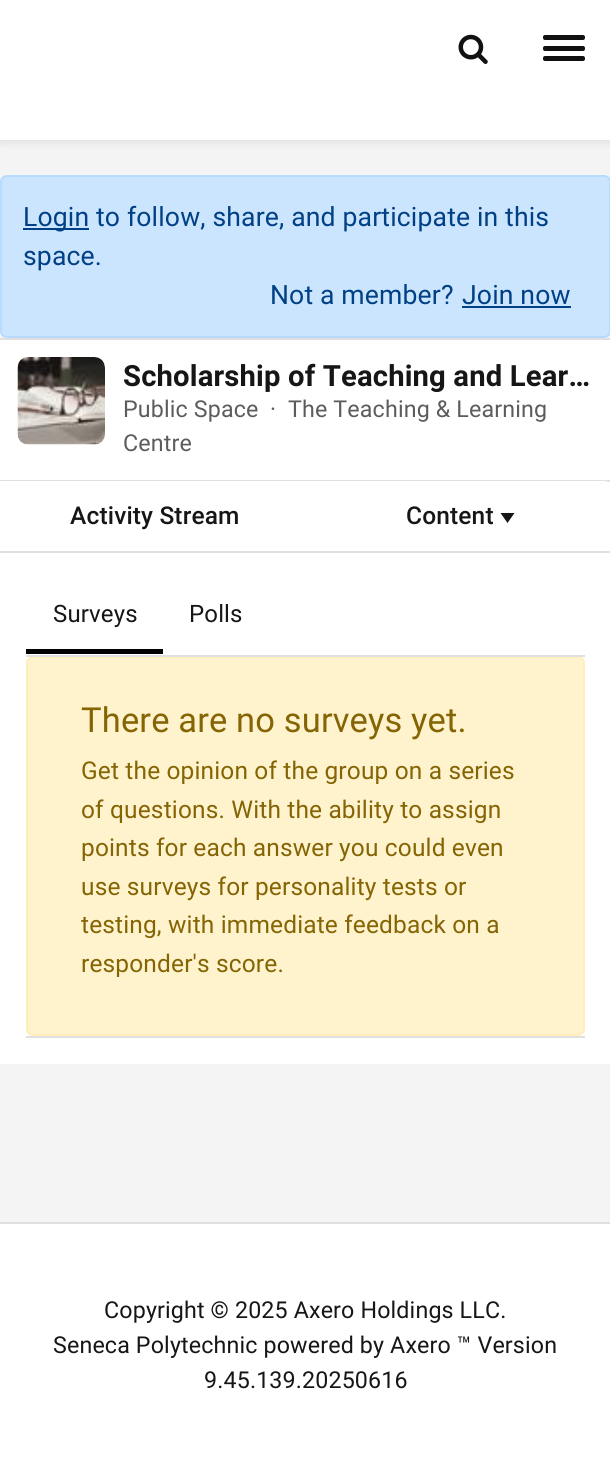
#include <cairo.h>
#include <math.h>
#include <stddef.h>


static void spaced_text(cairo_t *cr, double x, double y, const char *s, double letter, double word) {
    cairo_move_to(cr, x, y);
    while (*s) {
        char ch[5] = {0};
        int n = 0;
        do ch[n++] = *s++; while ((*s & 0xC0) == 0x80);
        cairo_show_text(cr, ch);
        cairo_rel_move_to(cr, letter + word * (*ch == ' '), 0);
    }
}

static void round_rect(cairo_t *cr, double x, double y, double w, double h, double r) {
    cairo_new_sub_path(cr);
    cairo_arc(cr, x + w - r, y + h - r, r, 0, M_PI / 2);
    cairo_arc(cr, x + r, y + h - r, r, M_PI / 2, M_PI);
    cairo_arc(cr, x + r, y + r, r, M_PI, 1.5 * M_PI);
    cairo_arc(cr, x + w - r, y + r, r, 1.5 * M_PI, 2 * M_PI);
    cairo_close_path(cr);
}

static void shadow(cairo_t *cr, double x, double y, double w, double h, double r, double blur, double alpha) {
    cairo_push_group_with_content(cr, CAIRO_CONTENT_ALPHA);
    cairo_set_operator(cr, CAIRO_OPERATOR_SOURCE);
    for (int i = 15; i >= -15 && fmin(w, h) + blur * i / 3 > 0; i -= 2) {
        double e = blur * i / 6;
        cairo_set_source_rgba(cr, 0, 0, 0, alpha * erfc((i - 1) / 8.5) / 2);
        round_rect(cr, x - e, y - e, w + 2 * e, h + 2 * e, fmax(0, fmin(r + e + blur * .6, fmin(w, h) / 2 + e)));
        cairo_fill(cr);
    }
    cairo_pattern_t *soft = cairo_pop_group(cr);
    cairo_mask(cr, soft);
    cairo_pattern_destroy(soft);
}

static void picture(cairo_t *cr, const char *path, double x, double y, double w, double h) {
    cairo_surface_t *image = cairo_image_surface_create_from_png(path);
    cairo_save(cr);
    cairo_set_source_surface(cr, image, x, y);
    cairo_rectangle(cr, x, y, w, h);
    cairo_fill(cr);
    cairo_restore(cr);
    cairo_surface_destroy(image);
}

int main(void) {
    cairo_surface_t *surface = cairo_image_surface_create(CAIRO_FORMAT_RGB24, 610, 1470);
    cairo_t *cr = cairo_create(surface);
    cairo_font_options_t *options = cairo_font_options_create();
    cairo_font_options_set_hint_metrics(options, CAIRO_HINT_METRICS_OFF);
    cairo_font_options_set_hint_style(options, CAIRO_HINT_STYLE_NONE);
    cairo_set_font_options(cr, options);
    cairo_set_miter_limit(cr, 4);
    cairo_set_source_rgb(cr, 0.957, 0.957, 0.957);
    cairo_paint(cr);
    cairo_set_source_rgb(cr, 0, 0, 0);
    shadow(cr, 0, 2, 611, 140, 0, 4.5, 0.1);
    cairo_set_source_rgb(cr, 1, 1, 1);
    cairo_rectangle(cr, 0, 0, 610, 140);
    cairo_fill(cr);
    picture(cr, "img1.png", 458, 34, 30, 30);
    cairo_set_source_rgb(cr, 0.067, 0.067, 0.067);
    round_rect(cr, 543, 35, 42, 5, 2);
    cairo_fill(cr);
    round_rect(cr, 543, 46, 42, 5, 2);
    cairo_fill(cr);
    round_rect(cr, 543, 56, 42, 5, 2);
    cairo_fill(cr);
    cairo_set_source_rgb(cr, 0.8, 0.898, 1);
    round_rect(cr, 1, 176, 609, 161, 6);
    cairo_fill_preserve(cr);
    cairo_set_source_rgb(cr, 0.722, 0.855, 1);
    cairo_stroke(cr);
    cairo_set_source_rgb(cr, 0, 0.251, 0.522);
    cairo_rectangle(cr, 23, 228, 66, 2);
    cairo_fill(cr);
    cairo_select_font_face(cr, "Roboto", CAIRO_FONT_SLANT_NORMAL, CAIRO_FONT_WEIGHT_NORMAL);
    cairo_set_font_size(cr, 26.6);
    spaced_text(cr, 23, 226, "Login to follow, share, and participate in this", 0.15, 0);
    spaced_text(cr, 23, 265, "space.", 0.15, 0);
    spaced_text(cr, 270, 304, "Not a member?", 0.15, 0);
    spaced_text(cr, 462, 304, "Join now", 0.15, 0);
    cairo_rectangle(cr, 462, 306, 109, 2);
    cairo_fill(cr);
    cairo_set_source_rgb(cr, 1, 1, 1);
    cairo_rectangle(cr, 0, 340, 610, 211);
    cairo_fill(cr);
    cairo_set_source_rgb(cr, 0.878, 0.878, 0.878);
    cairo_rectangle(cr, 0, 338, 610, 2);
    cairo_fill(cr);
    picture(cr, "img2.png", 17, 357, 88, 88);
    cairo_select_font_face(cr, "Roboto", CAIRO_FONT_SLANT_NORMAL, CAIRO_FONT_WEIGHT_BOLD);
    cairo_set_font_size(cr, 29.25);
    cairo_set_source_rgb(cr, 0.086, 0.086, 0.086);
    spaced_text(cr, 123, 386, "Scholarship of Teaching and Lear…", 0.15, 0);
    cairo_select_font_face(cr, "Roboto", CAIRO_FONT_SLANT_NORMAL, CAIRO_FONT_WEIGHT_NORMAL);
    cairo_set_font_size(cr, 23.25);
    cairo_set_source_rgb(cr, 0.361, 0.361, 0.361);
    spaced_text(cr, 123, 417, "Public Space", 0.15, 0);
    spaced_text(cr, 270, 417, "·", 0.15, 0);
    spaced_text(cr, 288, 417, "The Teaching & Learning", 0.15, 0);
    spaced_text(cr, 123, 451, "Centre", 0.15, 0);
    cairo_set_source_rgb(cr, 0.878, 0.878, 0.878);
    cairo_rectangle(cr, 0, 480, 610, 2);
    cairo_fill(cr);
    cairo_rectangle(cr, 0, 551, 610, 2);
    cairo_fill(cr);
    cairo_set_source_rgb(cr, 1, 1, 1);
    cairo_rectangle(cr, 0, 481, 310, 1);
    cairo_fill(cr);
    cairo_select_font_face(cr, "Roboto Medium", CAIRO_FONT_SLANT_NORMAL, CAIRO_FONT_WEIGHT_NORMAL);
    cairo_set_font_size(cr, 24.5);
    cairo_set_source_rgb(cr, 0.086, 0.086, 0.086);
    spaced_text(cr, 70, 524, "Activity Stream", 0.15, 0);
    cairo_set_source_rgb(cr, 1, 1, 1);
    cairo_new_path(cr);
    cairo_move_to(cr, 310, 481);
    cairo_line_to(cr, 604, 481);
    cairo_curve_to(cr, 608, 481, 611, 484, 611, 488);
    cairo_line_to(cr, 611, 544);
    cairo_curve_to(cr, 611, 548, 608, 551, 604, 551);
    cairo_line_to(cr, 310, 551);
    cairo_close_path(cr);
    cairo_fill(cr);
    cairo_set_source_rgb(cr, 0.086, 0.086, 0.086);
    spaced_text(cr, 406, 524, "Content", 0.15, 0);
    cairo_new_path(cr);
    cairo_move_to(cr, 500.5, 513);
    cairo_line_to(cr, 514.5, 513);
    cairo_line_to(cr, 507.5, 523);
    cairo_close_path(cr);
    cairo_fill(cr);
    cairo_set_source_rgb(cr, 1, 1, 1);
    cairo_rectangle(cr, 0, 553, 610, 511);
    cairo_fill(cr);
    cairo_set_source_rgb(cr, 1, 0.953, 0.804);
    round_rect(cr, 27, 657, 557, 378, 6);
    cairo_fill_preserve(cr);
    cairo_set_source_rgb(cr, 1, 0.933, 0.729);
    cairo_stroke(cr);
    cairo_set_source_rgb(cr, 0.878, 0.878, 0.878);
    cairo_rectangle(cr, 26, 655, 559, 2);
    cairo_fill(cr);
    cairo_set_source_rgb(cr, 0, 0, 0);
    cairo_rectangle(cr, 26, 649, 137, 5);
    cairo_fill(cr);
    cairo_select_font_face(cr, "Roboto", CAIRO_FONT_SLANT_NORMAL, CAIRO_FONT_WEIGHT_NORMAL);
    cairo_set_font_size(cr, 24);
    cairo_set_source_rgb(cr, 0.086, 0.086, 0.086);
    spaced_text(cr, 53, 622, "Surveys", 0.15, 0);
    spaced_text(cr, 189, 622, "Polls", 0.15, 0);
    cairo_set_font_size(cr, 34.5);
    cairo_set_source_rgb(cr, 0.522, 0.392, 0.016);
    spaced_text(cr, 81, 732, "There are no surveys yet.", 0.15, 0);
    cairo_set_font_size(cr, 24.5);
    spaced_text(cr, 81, 779, "Get the opinion of the group on a series", 0.15, 0);
    spaced_text(cr, 81, 818, "of questions. With the ability to assign", 0.15, 0);
    spaced_text(cr, 81, 856, "points for each answer you could even", 0.15, 0);
    spaced_text(cr, 81, 895, "use surveys for personality tests or", 0.15, 0);
    spaced_text(cr, 81, 933, "testing, with immediate feedback on a", 0.15, 0);
    spaced_text(cr, 81, 972, "responder's score.", 0.15, 0);
    cairo_set_source_rgb(cr, 0.878, 0.878, 0.878);
    cairo_rectangle(cr, 26, 1036, 559, 2);
    cairo_fill(cr);
    cairo_set_source_rgb(cr, 1, 1, 1);
    cairo_rectangle(cr, 0, 1224, 610, 246);
    cairo_fill(cr);
    cairo_set_source_rgb(cr, 0.878, 0.878, 0.878);
    cairo_rectangle(cr, 0, 1222, 610, 2);
    cairo_fill(cr);
    cairo_set_font_size(cr, 23.25);
    cairo_set_source_rgb(cr, 0.086, 0.086, 0.086);
    spaced_text(cr, 104, 1318, "Copyright © 2025 Axero Holdings LLC.", 0.15, 0);
    spaced_text(cr, 53, 1353, "Seneca Polytechnic powered by Axero ™ Version", 0.15, 0);
    spaced_text(cr, 204, 1388, "9.45.139.20250616", 0.15, 0);
    cairo_surface_write_to_png(surface, "page.png");
    cairo_font_options_destroy(options);
    cairo_destroy(cr);
    cairo_surface_destroy(surface);
    return 0;
}
